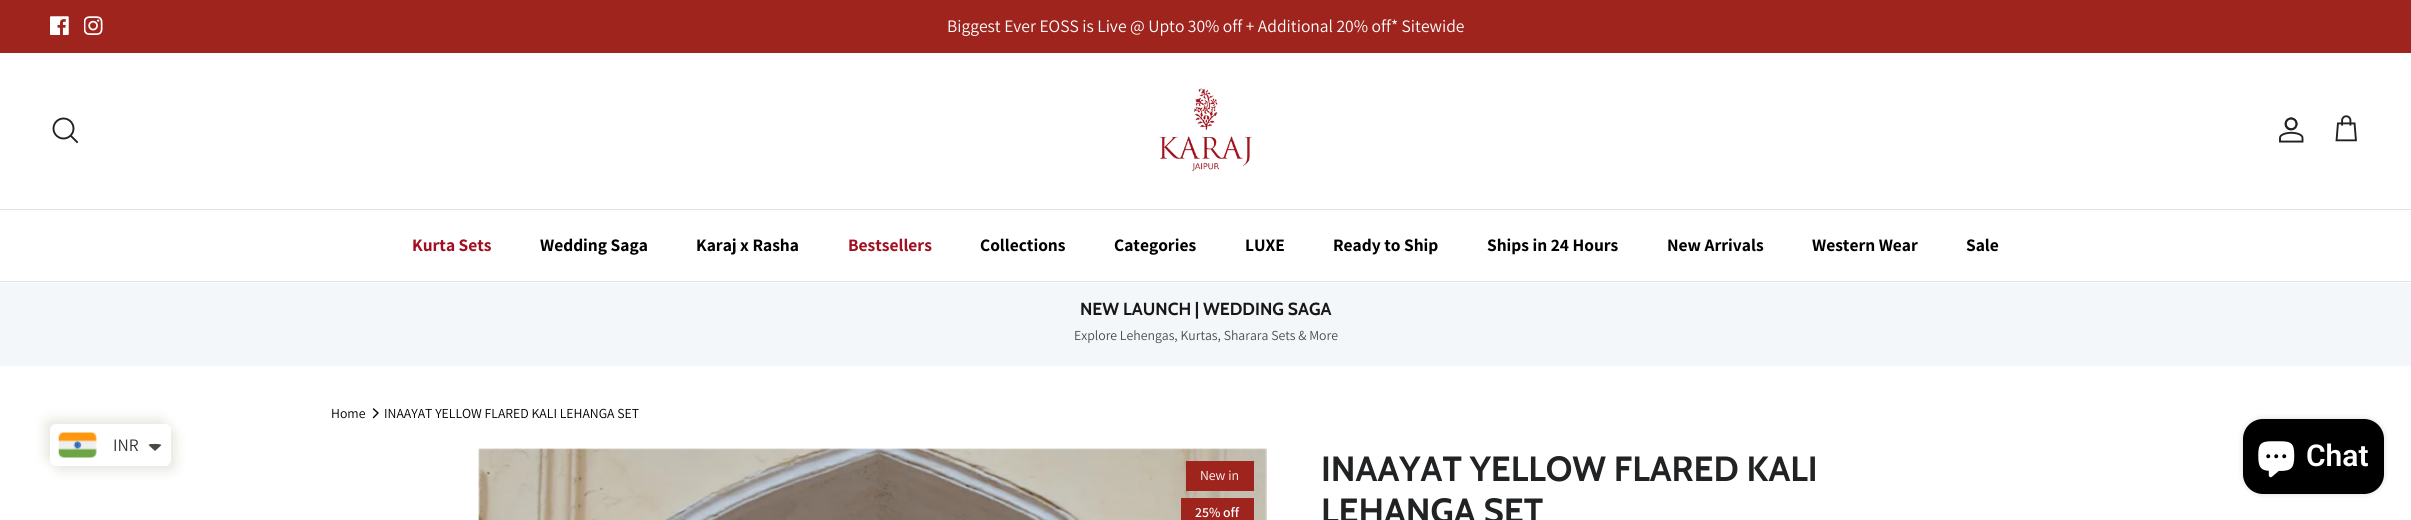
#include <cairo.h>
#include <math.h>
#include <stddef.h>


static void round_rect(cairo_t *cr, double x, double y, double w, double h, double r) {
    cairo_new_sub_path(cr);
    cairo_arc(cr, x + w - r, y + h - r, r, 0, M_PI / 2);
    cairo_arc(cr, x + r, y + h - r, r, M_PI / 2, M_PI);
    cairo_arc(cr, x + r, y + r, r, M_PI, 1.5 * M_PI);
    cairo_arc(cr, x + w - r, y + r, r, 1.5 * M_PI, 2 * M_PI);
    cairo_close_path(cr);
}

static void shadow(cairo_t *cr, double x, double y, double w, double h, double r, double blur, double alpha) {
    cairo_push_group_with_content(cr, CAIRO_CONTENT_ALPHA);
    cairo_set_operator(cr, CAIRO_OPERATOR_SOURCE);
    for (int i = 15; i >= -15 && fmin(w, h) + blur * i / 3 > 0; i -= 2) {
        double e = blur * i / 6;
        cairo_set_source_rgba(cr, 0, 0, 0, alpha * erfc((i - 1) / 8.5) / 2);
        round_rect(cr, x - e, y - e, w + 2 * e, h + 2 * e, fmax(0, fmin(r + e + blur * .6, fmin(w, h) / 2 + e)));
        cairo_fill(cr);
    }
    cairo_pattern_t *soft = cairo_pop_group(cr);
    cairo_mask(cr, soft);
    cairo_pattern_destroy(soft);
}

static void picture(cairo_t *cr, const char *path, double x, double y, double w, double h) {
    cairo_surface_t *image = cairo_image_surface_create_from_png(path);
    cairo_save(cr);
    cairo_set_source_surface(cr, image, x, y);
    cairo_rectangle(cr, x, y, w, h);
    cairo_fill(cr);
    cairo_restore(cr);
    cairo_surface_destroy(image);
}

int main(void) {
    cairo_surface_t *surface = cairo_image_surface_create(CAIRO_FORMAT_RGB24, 2411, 520);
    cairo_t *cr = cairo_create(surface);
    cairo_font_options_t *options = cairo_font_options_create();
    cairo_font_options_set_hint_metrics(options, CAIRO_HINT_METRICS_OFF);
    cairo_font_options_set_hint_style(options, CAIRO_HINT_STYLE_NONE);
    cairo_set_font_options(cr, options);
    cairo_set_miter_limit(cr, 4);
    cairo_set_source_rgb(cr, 1, 1, 1);
    cairo_paint(cr);
    cairo_set_source_rgb(cr, 0.627, 0.141, 0.118);
    cairo_rectangle(cr, 0, 0, 2411, 53);
    cairo_fill(cr);
    picture(cr, "img1.png", 50, 16, 19, 19);
    picture(cr, "img2.png", 84, 16, 19, 19);
    cairo_select_font_face(cr, "Assistant", CAIRO_FONT_SLANT_NORMAL, CAIRO_FONT_WEIGHT_NORMAL);
    cairo_set_font_size(cr, 17.5);
    cairo_set_source_rgb(cr, 1, 1, 1);
    cairo_move_to(cr, 947, 32);
    cairo_show_text(cr, "Biggest Ever EOSS is Live @ Upto 30% off + Additional 20% off* Sitewide");
    cairo_set_source_rgb(cr, 0.886, 0.886, 0.886);
    cairo_rectangle(cr, 0, 209, 2411, 1);
    cairo_fill(cr);
    cairo_arc(cr, 63.5, 128.5, 10, 0, 2 * M_PI);
    cairo_set_source_rgb(cr, 0.125, 0.133, 0.137);
    cairo_set_line_width(cr, 1.9);
    cairo_stroke(cr);
    cairo_new_path(cr);
    cairo_move_to(cr, 71, 136);
    cairo_line_to(cr, 77, 142);
    cairo_set_line_cap(cr, CAIRO_LINE_CAP_SQUARE);
    cairo_stroke(cr);
    picture(cr, "img3.png", 1159, 88, 93, 83);
    picture(cr, "img4.png", 2279, 117, 25, 26);
    picture(cr, "img5.png", 2335, 115, 22, 27);
    cairo_set_source_rgb(cr, 0.886, 0.886, 0.886);
    cairo_rectangle(cr, 0, 281, 2411, 1);
    cairo_fill(cr);
    cairo_select_font_face(cr, "Assistant", CAIRO_FONT_SLANT_NORMAL, CAIRO_FONT_WEIGHT_BOLD);
    cairo_set_source_rgb(cr, 0.631, 0.063, 0.125);
    cairo_move_to(cr, 412, 251);
    cairo_show_text(cr, "Kurta Sets");
    cairo_set_source_rgb(cr, 0, 0, 0);
    cairo_move_to(cr, 540, 251);
    cairo_show_text(cr, "Wedding Saga");
    cairo_move_to(cr, 696, 251);
    cairo_show_text(cr, "Karaj x Rasha");
    cairo_set_source_rgb(cr, 0.631, 0.063, 0.125);
    cairo_move_to(cr, 848, 251);
    cairo_show_text(cr, "Bestsellers");
    cairo_set_source_rgb(cr, 0, 0, 0);
    cairo_move_to(cr, 980, 251);
    cairo_show_text(cr, "Collections");
    cairo_move_to(cr, 1114, 251);
    cairo_show_text(cr, "Categories");
    cairo_move_to(cr, 1245, 251);
    cairo_show_text(cr, "LUXE");
    cairo_move_to(cr, 1333, 251);
    cairo_show_text(cr, "Ready to Ship");
    cairo_move_to(cr, 1487, 251);
    cairo_show_text(cr, "Ships in 24 Hours");
    cairo_move_to(cr, 1667, 251);
    cairo_show_text(cr, "New Arrivals");
    cairo_move_to(cr, 1812, 251);
    cairo_show_text(cr, "Western Wear");
    cairo_move_to(cr, 1966, 251);
    cairo_show_text(cr, "Sale");
    cairo_set_source_rgb(cr, 0.957, 0.965, 0.973);
    cairo_rectangle(cr, 0, 283, 2411, 83);
    cairo_fill(cr);
    cairo_select_font_face(cr, "Cabin", CAIRO_FONT_SLANT_NORMAL, CAIRO_FONT_WEIGHT_BOLD);
    cairo_set_source_rgb(cr, 0.09, 0.09, 0.09);
    cairo_move_to(cr, 1080, 315);
    cairo_show_text(cr, "NEW LAUNCH | WEDDING SAGA");
    cairo_select_font_face(cr, "Assistant", CAIRO_FONT_SLANT_NORMAL, CAIRO_FONT_WEIGHT_NORMAL);
    cairo_set_font_size(cr, 13.75);
    cairo_set_source_rgb(cr, 0.298, 0.298, 0.294);
    cairo_move_to(cr, 1074, 340);
    cairo_show_text(cr, "Explore Lehengas, Kurtas, Sharara Sets & More");
    cairo_set_source_rgb(cr, 0.91, 0.91, 0.886);
    shadow(cr, 45, 419, 121, 42, 6, 5.5, 1);
    shadow(cr, 55, 429, 121, 42, 6, 5.5, 1);
    cairo_set_source_rgb(cr, 1, 1, 1);
    round_rect(cr, 50, 424, 121, 42, 6);
    cairo_fill(cr);
    picture(cr, "img6.png", 58, 432, 39, 26);
    cairo_set_font_size(cr, 17.5);
    cairo_set_source_rgb(cr, 0.2, 0.2, 0.2);
    cairo_move_to(cr, 113, 451);
    cairo_show_text(cr, "INR");
    cairo_set_source_rgb(cr, 0.278, 0.286, 0.259);
    cairo_new_path(cr);
    cairo_move_to(cr, 151, 444);
    cairo_curve_to(cr, 153.5, 444, 159.5, 443.5, 161.5, 445);
    cairo_line_to(cr, 155, 451);
    cairo_line_to(cr, 148.5, 445);
    cairo_curve_to(cr, 149, 444.5, 150, 444, 151, 444);
    cairo_close_path(cr);
    cairo_fill(cr);
    cairo_set_font_size(cr, 13.75);
    cairo_set_source_rgb(cr, 0, 0, 0);
    cairo_move_to(cr, 331, 418);
    cairo_show_text(cr, "Home");
    cairo_new_path(cr);
    cairo_move_to(cr, 373.5, 417.5);
    cairo_line_to(cr, 378, 413);
    cairo_line_to(cr, 373.5, 409);
    cairo_set_line_width(cr, 1.4);
    cairo_set_line_cap(cr, CAIRO_LINE_CAP_ROUND);
    cairo_set_line_join(cr, CAIRO_LINE_JOIN_ROUND);
    cairo_stroke(cr);
    cairo_move_to(cr, 384, 418);
    cairo_show_text(cr, "INAAYAT YELLOW FLARED KALI LEHANGA SET");
    picture(cr, "img7.png", 478, 448, 789, 72);
    cairo_set_source_rgb(cr, 0.627, 0.141, 0.118);
    cairo_rectangle(cr, 1186, 461, 68, 30);
    cairo_fill(cr);
    cairo_set_source_rgb(cr, 1, 1, 1);
    cairo_move_to(cr, 1200, 480);
    cairo_show_text(cr, "New in");
    cairo_set_source_rgb(cr, 0.627, 0.141, 0.118);
    cairo_rectangle(cr, 1181, 498, 73, 22);
    cairo_fill(cr);
    cairo_select_font_face(cr, "Assistant SemiBold", CAIRO_FONT_SLANT_NORMAL, CAIRO_FONT_WEIGHT_NORMAL);
    cairo_set_source_rgb(cr, 1, 1, 1);
    cairo_move_to(cr, 1195, 517);
    cairo_show_text(cr, "25% off");
    cairo_select_font_face(cr, "Cabin", CAIRO_FONT_SLANT_NORMAL, CAIRO_FONT_WEIGHT_BOLD);
    cairo_set_font_size(cr, 35);
    cairo_set_source_rgb(cr, 0.125, 0.133, 0.137);
    cairo_move_to(cr, 1321, 481);
    cairo_show_text(cr, "INAAYAT YELLOW FLARED KALI");
    cairo_move_to(cr, 1321, 523);
    cairo_show_text(cr, "LEHANGA SET");
    cairo_set_source_rgb(cr, 0, 0, 0);
    shadow(cr, 2243, 419, 141, 75, 20, 3, 0.15);
    cairo_set_source_rgb(cr, 0, 0, 0);
    round_rect(cr, 2243, 419, 141, 75, 20);
    cairo_fill(cr);
    picture(cr, "img8.png", 2258, 441, 37, 37);
    cairo_select_font_face(cr, "Roboto SemiBold", CAIRO_FONT_SLANT_NORMAL, CAIRO_FONT_WEIGHT_NORMAL);
    cairo_set_font_size(cr, 30);
    cairo_set_source_rgb(cr, 1, 1, 1);
    cairo_move_to(cr, 2306, 466);
    cairo_show_text(cr, "Chat");
    cairo_surface_write_to_png(surface, "page.png");
    cairo_font_options_destroy(options);
    cairo_destroy(cr);
    cairo_surface_destroy(surface);
    return 0;
}
